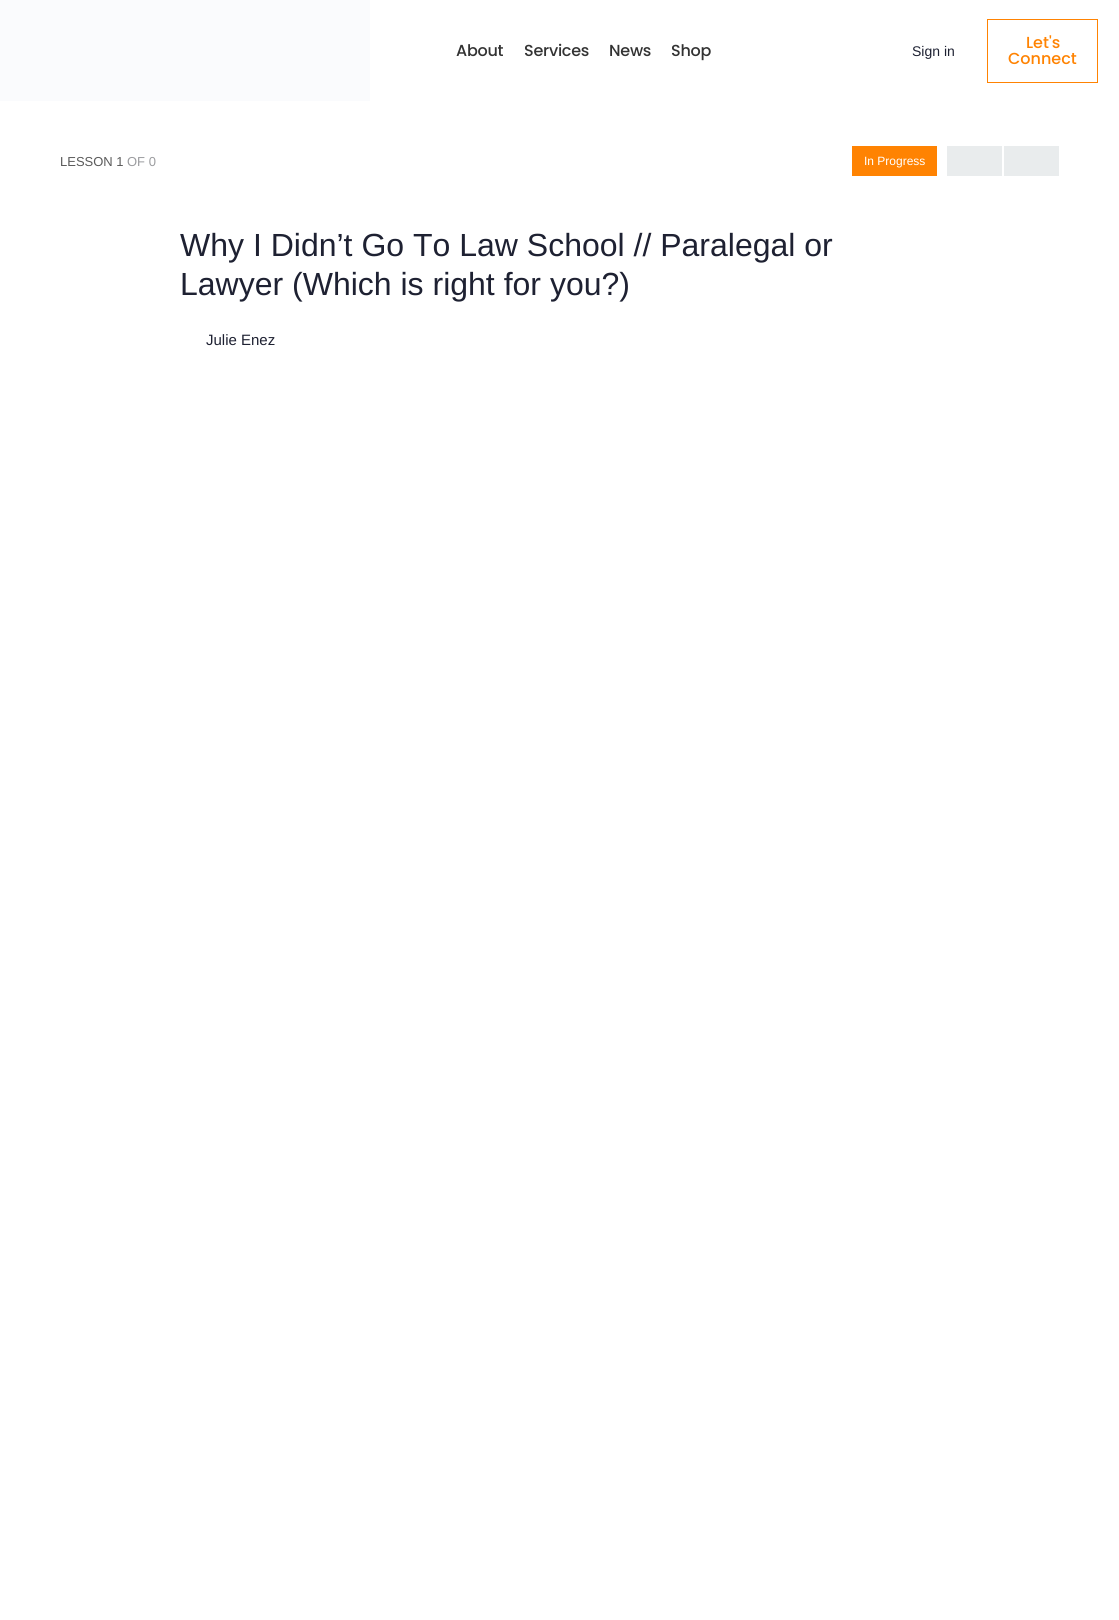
#include <cairo.h>
#include <math.h>
#include <stddef.h>


static void spaced_text(cairo_t *cr, double x, double y, const char *s, double letter, double word) {
    cairo_move_to(cr, x, y);
    while (*s) {
        char ch[5] = {0};
        int n = 0;
        do ch[n++] = *s++; while ((*s & 0xC0) == 0x80);
        cairo_show_text(cr, ch);
        cairo_rel_move_to(cr, letter + word * (*ch == ' '), 0);
    }
}

int main(void) {
    cairo_surface_t *surface = cairo_image_surface_create(CAIRO_FORMAT_RGB24, 1119, 1620);
    cairo_t *cr = cairo_create(surface);
    cairo_font_options_t *options = cairo_font_options_create();
    cairo_font_options_set_hint_metrics(options, CAIRO_HINT_METRICS_OFF);
    cairo_font_options_set_hint_style(options, CAIRO_HINT_STYLE_NONE);
    cairo_set_font_options(cr, options);
    cairo_set_miter_limit(cr, 4);
    cairo_set_source_rgb(cr, 0.98, 0.984, 0.992);
    cairo_paint(cr);
    cairo_set_source_rgb(cr, 1, 1, 1);
    cairo_rectangle(cr, 370, 0, 749, 101);
    cairo_fill(cr);
    cairo_select_font_face(cr, "Poppins Medium", CAIRO_FONT_SLANT_NORMAL, CAIRO_FONT_WEIGHT_NORMAL);
    cairo_set_font_size(cr, 16);
    cairo_set_source_rgb(cr, 0.2, 0.2, 0.2);
    spaced_text(cr, 456, 56, "About", -0.25, 0);
    spaced_text(cr, 524, 56, "Services", -0.25, 0);
    spaced_text(cr, 609, 56, "News", -0.25, 0);
    spaced_text(cr, 671, 56, "Shop", -0.25, 0);
    cairo_select_font_face(cr, "Liberation Sans", CAIRO_FONT_SLANT_NORMAL, CAIRO_FONT_WEIGHT_NORMAL);
    cairo_set_font_size(cr, 14);
    cairo_set_source_rgb(cr, 0.118, 0.129, 0.196);
    cairo_move_to(cr, 912, 56);
    cairo_show_text(cr, "Sign in");
    cairo_rectangle(cr, 987.5, 19.5, 110, 63);
    cairo_set_source_rgb(cr, 1, 0.514, 0.008);
    cairo_set_line_width(cr, 1);
    cairo_stroke(cr);
    cairo_select_font_face(cr, "Poppins Medium", CAIRO_FONT_SLANT_NORMAL, CAIRO_FONT_WEIGHT_NORMAL);
    cairo_set_font_size(cr, 16);
    cairo_move_to(cr, 1026, 48);
    cairo_show_text(cr, "Let's");
    cairo_move_to(cr, 1008, 64);
    cairo_show_text(cr, "Connect");
    cairo_set_source_rgb(cr, 1, 1, 1);
    cairo_rectangle(cr, 0, 101, 1119, 1519);
    cairo_fill(cr);
    cairo_select_font_face(cr, "Liberation Sans", CAIRO_FONT_SLANT_NORMAL, CAIRO_FONT_WEIGHT_NORMAL);
    cairo_set_font_size(cr, 13);
    cairo_set_source_rgb(cr, 0.353, 0.353, 0.353);
    cairo_move_to(cr, 60, 166);
    cairo_show_text(cr, "LESSON 1");
    cairo_set_source_rgb(cr, 0.608, 0.612, 0.624);
    cairo_move_to(cr, 127, 166);
    cairo_show_text(cr, "OF 0");
    cairo_set_source_rgb(cr, 1, 0.514, 0.008);
    cairo_rectangle(cr, 852, 146, 85, 30);
    cairo_fill(cr);
    cairo_set_font_size(cr, 12);
    cairo_set_source_rgb(cr, 1, 1, 1);
    cairo_move_to(cr, 864, 165);
    cairo_show_text(cr, "In Progress");
    cairo_set_source_rgb(cr, 0.914, 0.922, 0.929);
    cairo_rectangle(cr, 947, 146, 55, 30);
    cairo_fill(cr);
    cairo_rectangle(cr, 1004, 146, 55, 30);
    cairo_fill(cr);
    cairo_set_font_size(cr, 32);
    cairo_set_source_rgb(cr, 0.118, 0.129, 0.196);
    cairo_move_to(cr, 180, 256);
    cairo_show_text(cr, "Why I Didn’t Go To Law School // Paralegal or");
    cairo_move_to(cr, 180, 295);
    cairo_show_text(cr, "Lawyer (Which is right for you?)");
    cairo_set_font_size(cr, 15);
    cairo_move_to(cr, 206, 345);
    cairo_show_text(cr, "Julie Enez");
    cairo_surface_write_to_png(surface, "page.png");
    cairo_font_options_destroy(options);
    cairo_destroy(cr);
    cairo_surface_destroy(surface);
    return 0;
}
